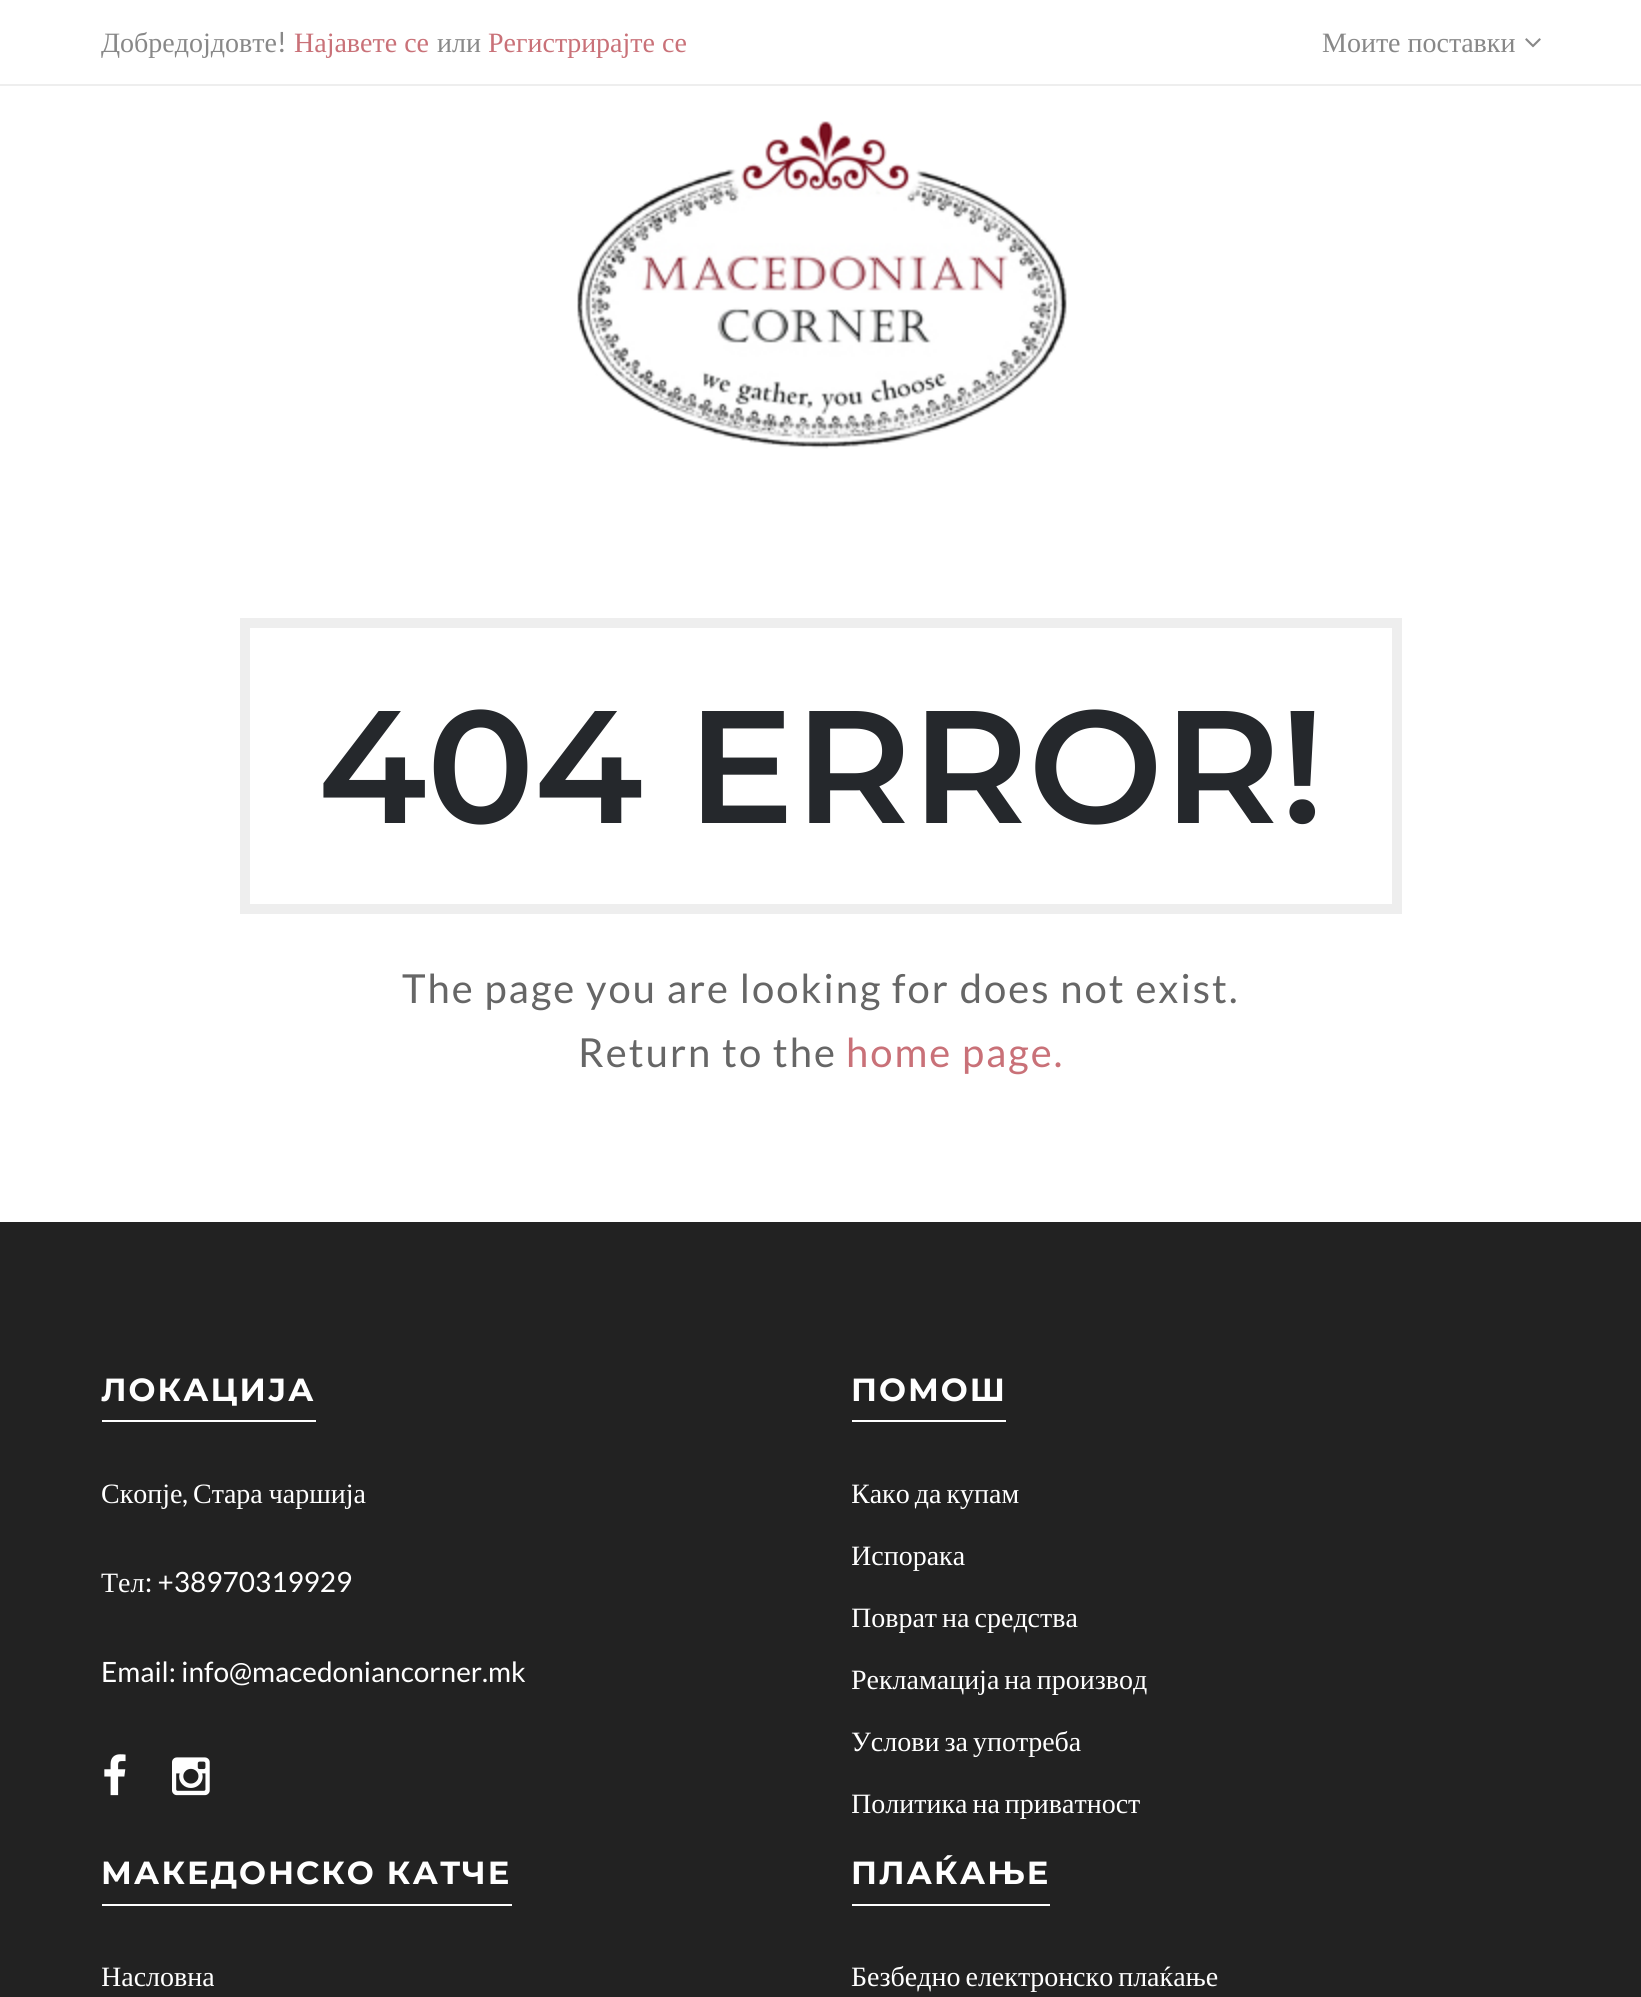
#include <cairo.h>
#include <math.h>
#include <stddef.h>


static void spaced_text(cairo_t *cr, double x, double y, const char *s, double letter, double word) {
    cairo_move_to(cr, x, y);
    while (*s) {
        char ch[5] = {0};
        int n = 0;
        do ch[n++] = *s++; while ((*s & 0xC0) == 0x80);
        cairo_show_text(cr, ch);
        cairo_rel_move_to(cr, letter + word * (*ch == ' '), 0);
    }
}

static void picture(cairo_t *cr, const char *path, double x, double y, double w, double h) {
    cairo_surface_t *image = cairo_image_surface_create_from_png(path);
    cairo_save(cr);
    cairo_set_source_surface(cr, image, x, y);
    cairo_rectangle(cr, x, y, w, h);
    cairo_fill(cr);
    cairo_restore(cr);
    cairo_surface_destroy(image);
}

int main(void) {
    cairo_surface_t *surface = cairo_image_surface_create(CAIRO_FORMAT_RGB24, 1641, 1997);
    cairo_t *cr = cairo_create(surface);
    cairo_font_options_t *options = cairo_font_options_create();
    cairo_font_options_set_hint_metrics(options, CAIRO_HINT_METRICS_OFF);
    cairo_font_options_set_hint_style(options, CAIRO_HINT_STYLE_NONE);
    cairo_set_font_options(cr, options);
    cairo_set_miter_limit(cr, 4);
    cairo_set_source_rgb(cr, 1, 1, 1);
    cairo_paint(cr);
    cairo_set_source_rgb(cr, 0.933, 0.933, 0.933);
    cairo_rectangle(cr, 0, 84, 1641, 2);
    cairo_fill(cr);
    cairo_select_font_face(cr, "Liberation Serif", CAIRO_FONT_SLANT_NORMAL, CAIRO_FONT_WEIGHT_NORMAL);
    cairo_set_font_size(cr, 28);
    cairo_set_source_rgb(cr, 0.533, 0.533, 0.533);
    cairo_move_to(cr, 101, 52);
    cairo_show_text(cr, "Добредојдовте");
    cairo_select_font_face(cr, "Lato", CAIRO_FONT_SLANT_NORMAL, CAIRO_FONT_WEIGHT_NORMAL);
    cairo_move_to(cr, 277, 52);
    cairo_show_text(cr, "!");
    cairo_select_font_face(cr, "Liberation Serif", CAIRO_FONT_SLANT_NORMAL, CAIRO_FONT_WEIGHT_NORMAL);
    cairo_set_source_rgb(cr, 0.788, 0.443, 0.471);
    cairo_move_to(cr, 294, 52);
    cairo_show_text(cr, "Најавете се");
    cairo_set_source_rgb(cr, 0.533, 0.533, 0.533);
    cairo_move_to(cr, 437, 52);
    cairo_show_text(cr, "или");
    cairo_set_source_rgb(cr, 0.788, 0.443, 0.471);
    cairo_move_to(cr, 488, 52);
    cairo_show_text(cr, "Регистрирајте се");
    cairo_set_source_rgb(cr, 0.533, 0.533, 0.533);
    cairo_move_to(cr, 1322, 52);
    cairo_show_text(cr, "Моите поставки");
    picture(cr, "img1.png", 1525, 38, 16, 10);
    picture(cr, "img2.png", 577, 121, 490, 328);
    cairo_rectangle(cr, 245, 623, 1152, 286);
    cairo_set_source_rgb(cr, 0.933, 0.933, 0.933);
    cairo_set_line_width(cr, 10);
    cairo_stroke(cr);
    cairo_select_font_face(cr, "Montserrat SemiBold", CAIRO_FONT_SLANT_NORMAL, CAIRO_FONT_WEIGHT_NORMAL);
    cairo_set_font_size(cr, 160);
    cairo_set_source_rgb(cr, 0.145, 0.157, 0.173);
    cairo_move_to(cr, 318, 823);
    cairo_show_text(cr, "404 ERROR!");
    cairo_select_font_face(cr, "Lato", CAIRO_FONT_SLANT_NORMAL, CAIRO_FONT_WEIGHT_NORMAL);
    cairo_set_font_size(cr, 40);
    cairo_set_source_rgb(cr, 0.4, 0.4, 0.4);
    spaced_text(cr, 402, 1003, "The page you are looking for does not exist.", 2, 0);
    spaced_text(cr, 578, 1067, "Return to the", 2, 0);
    cairo_set_source_rgb(cr, 0.788, 0.443, 0.471);
    spaced_text(cr, 846, 1067, "home page.", 2, 0);
    cairo_set_source_rgb(cr, 0.133, 0.133, 0.133);
    cairo_rectangle(cr, 0, 1222, 1641, 775);
    cairo_fill(cr);
    cairo_select_font_face(cr, "Montserrat", CAIRO_FONT_SLANT_NORMAL, CAIRO_FONT_WEIGHT_BOLD);
    cairo_set_font_size(cr, 32);
    cairo_set_source_rgb(cr, 1, 1, 1);
    spaced_text(cr, 101, 1401, "ЛОКАЦИЈА", 2, 0);
    cairo_rectangle(cr, 102, 1420, 214, 2);
    cairo_fill(cr);
    cairo_select_font_face(cr, "Liberation Serif", CAIRO_FONT_SLANT_NORMAL, CAIRO_FONT_WEIGHT_NORMAL);
    cairo_set_font_size(cr, 28);
    cairo_move_to(cr, 101, 1503);
    cairo_show_text(cr, "Скопје");
    cairo_select_font_face(cr, "Lato", CAIRO_FONT_SLANT_NORMAL, CAIRO_FONT_WEIGHT_NORMAL);
    cairo_move_to(cr, 182, 1503);
    cairo_show_text(cr, ",");
    cairo_select_font_face(cr, "Liberation Serif", CAIRO_FONT_SLANT_NORMAL, CAIRO_FONT_WEIGHT_NORMAL);
    spaced_text(cr, 193, 1503, "Стара чаршија", 0, -1);
    cairo_move_to(cr, 101, 1592);
    cairo_show_text(cr, "Тел");
    cairo_select_font_face(cr, "Lato", CAIRO_FONT_SLANT_NORMAL, CAIRO_FONT_WEIGHT_NORMAL);
    cairo_move_to(cr, 145, 1592);
    cairo_show_text(cr, ": +38970319929");
    cairo_move_to(cr, 101, 1682);
    cairo_show_text(cr, "Email: info@macedoniancorner.mk");
    picture(cr, "img3.png", 104, 1754, 22, 42);
    picture(cr, "img4.png", 172, 1757, 38, 39);
    cairo_select_font_face(cr, "Montserrat", CAIRO_FONT_SLANT_NORMAL, CAIRO_FONT_WEIGHT_BOLD);
    cairo_set_font_size(cr, 32);
    spaced_text(cr, 851, 1401, "ПОМОШ", 2, 0);
    cairo_rectangle(cr, 852, 1420, 154, 2);
    cairo_fill(cr);
    cairo_save(cr);
    cairo_rectangle(cr, 852, 1450, 296, 382);
    cairo_clip(cr);
    cairo_select_font_face(cr, "Liberation Serif", CAIRO_FONT_SLANT_NORMAL, CAIRO_FONT_WEIGHT_NORMAL);
    cairo_set_font_size(cr, 28);
    spaced_text(cr, 851, 1503, "Како да купам", 0, -2);
    cairo_move_to(cr, 851, 1565);
    cairo_show_text(cr, "Испорака");
    spaced_text(cr, 851, 1627, "Поврат на средства", 0, -2);
    cairo_restore(cr);
    cairo_select_font_face(cr, "Liberation Serif", CAIRO_FONT_SLANT_NORMAL, CAIRO_FONT_WEIGHT_NORMAL);
    cairo_set_font_size(cr, 28);
    spaced_text(cr, 851, 1689, "Рекламација на производ", 0, -2);
    spaced_text(cr, 851, 1751, "Услови за употреба", 0, -2);
    cairo_save(cr);
    cairo_rectangle(cr, 852, 1450, 296, 382);
    cairo_clip(cr);
    spaced_text(cr, 851, 1813, "Политика на приватност", 0, -2);
    cairo_restore(cr);
    cairo_select_font_face(cr, "Montserrat", CAIRO_FONT_SLANT_NORMAL, CAIRO_FONT_WEIGHT_BOLD);
    cairo_set_font_size(cr, 32);
    spaced_text(cr, 101, 1884, "МАКЕДОНСКО КАТЧЕ", 2, 0);
    cairo_rectangle(cr, 102, 1904, 410, 2);
    cairo_fill(cr);
    cairo_save(cr);
    cairo_rectangle(cr, 102, 1934, 112, 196);
    cairo_clip(cr);
    cairo_select_font_face(cr, "Liberation Serif", CAIRO_FONT_SLANT_NORMAL, CAIRO_FONT_WEIGHT_NORMAL);
    cairo_set_font_size(cr, 28);
    cairo_move_to(cr, 101, 1986);
    cairo_show_text(cr, "Насловна");
    cairo_restore(cr);
    spaced_text(cr, 851, 1884, "ПЛАЌАЊЕ", 2, 0);
    cairo_rectangle(cr, 852, 1904, 198, 2);
    cairo_fill(cr);
    cairo_select_font_face(cr, "Liberation Serif", CAIRO_FONT_SLANT_NORMAL, CAIRO_FONT_WEIGHT_NORMAL);
    cairo_set_font_size(cr, 28);
    spaced_text(cr, 851, 1986, "Безбедно електронско плаќање", 0, -2);
    cairo_surface_write_to_png(surface, "page.png");
    cairo_font_options_destroy(options);
    cairo_destroy(cr);
    cairo_surface_destroy(surface);
    return 0;
}
